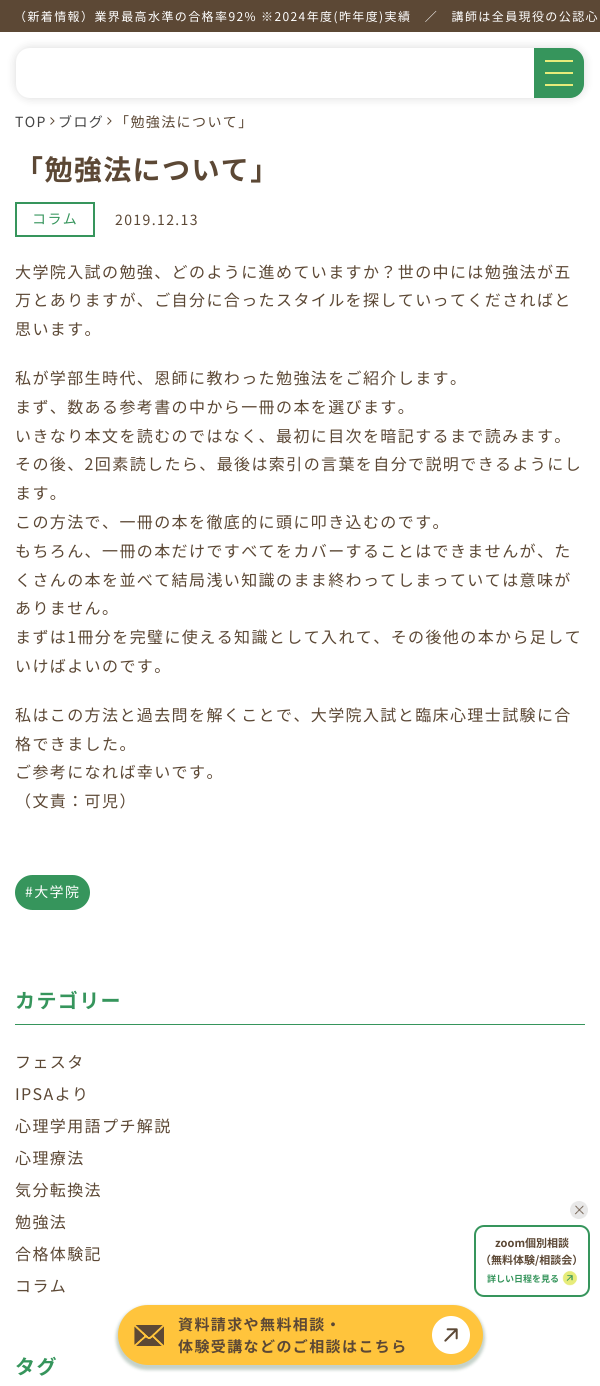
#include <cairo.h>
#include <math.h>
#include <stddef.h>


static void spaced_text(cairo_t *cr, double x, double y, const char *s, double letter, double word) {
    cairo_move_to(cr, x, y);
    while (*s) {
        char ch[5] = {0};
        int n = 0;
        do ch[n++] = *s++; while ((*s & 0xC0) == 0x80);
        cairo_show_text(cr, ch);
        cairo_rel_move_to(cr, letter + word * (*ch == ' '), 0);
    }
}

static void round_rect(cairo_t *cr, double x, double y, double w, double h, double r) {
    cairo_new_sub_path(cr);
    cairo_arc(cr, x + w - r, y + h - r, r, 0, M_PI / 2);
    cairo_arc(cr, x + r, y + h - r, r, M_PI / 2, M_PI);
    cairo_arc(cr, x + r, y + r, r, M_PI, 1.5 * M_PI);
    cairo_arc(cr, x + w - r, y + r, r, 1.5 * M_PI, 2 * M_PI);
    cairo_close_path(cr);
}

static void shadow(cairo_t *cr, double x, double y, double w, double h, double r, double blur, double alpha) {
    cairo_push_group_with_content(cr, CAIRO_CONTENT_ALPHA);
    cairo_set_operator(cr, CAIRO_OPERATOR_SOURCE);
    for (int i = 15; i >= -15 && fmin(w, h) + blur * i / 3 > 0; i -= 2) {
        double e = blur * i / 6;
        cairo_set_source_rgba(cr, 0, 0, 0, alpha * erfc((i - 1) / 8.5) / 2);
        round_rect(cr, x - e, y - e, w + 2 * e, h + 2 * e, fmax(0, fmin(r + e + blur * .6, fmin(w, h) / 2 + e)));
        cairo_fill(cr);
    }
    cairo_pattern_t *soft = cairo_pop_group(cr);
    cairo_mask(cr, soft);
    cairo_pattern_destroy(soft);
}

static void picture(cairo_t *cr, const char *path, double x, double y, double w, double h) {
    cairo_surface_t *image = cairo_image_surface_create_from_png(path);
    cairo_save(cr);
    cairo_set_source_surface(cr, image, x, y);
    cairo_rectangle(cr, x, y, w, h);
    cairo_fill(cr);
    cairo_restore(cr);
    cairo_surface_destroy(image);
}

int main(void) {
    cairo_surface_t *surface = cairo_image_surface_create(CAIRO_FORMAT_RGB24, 600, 1386);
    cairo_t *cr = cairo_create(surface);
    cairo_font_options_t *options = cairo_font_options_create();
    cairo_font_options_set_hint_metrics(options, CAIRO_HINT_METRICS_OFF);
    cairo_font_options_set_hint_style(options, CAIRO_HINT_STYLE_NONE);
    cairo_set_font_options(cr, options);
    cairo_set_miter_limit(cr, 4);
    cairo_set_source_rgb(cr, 1, 1, 1);
    cairo_paint(cr);
    cairo_set_source_rgb(cr, 0.361, 0.282, 0.208);
    cairo_rectangle(cr, 0, 0, 600, 32);
    cairo_fill(cr);
    cairo_select_font_face(cr, "Noto Sans JP", CAIRO_FONT_SLANT_NORMAL, CAIRO_FONT_WEIGHT_NORMAL);
    cairo_set_font_size(cr, 12);
    cairo_set_source_rgb(cr, 1, 1, 1);
    spaced_text(cr, 14, 21, "（新着情報）業界最高水準の合格率92% ※2024年度(昨年度)実績　／　講師は全員現役の公認心", 1.4, 0);
    cairo_set_source_rgb(cr, 0, 0, 0);
    shadow(cr, 16, 48, 568, 50, 14, 5, 0.15);
    cairo_set_source_rgb(cr, 1, 1, 1);
    round_rect(cr, 16, 48, 568, 50, 14);
    cairo_fill(cr);
    cairo_set_source_rgb(cr, 0.212, 0.584, 0.361);
    cairo_new_path(cr);
    cairo_move_to(cr, 534, 48);
    cairo_line_to(cr, 570, 48);
    cairo_curve_to(cr, 577.5, 48, 584, 54.5, 584, 62);
    cairo_line_to(cr, 584, 84);
    cairo_curve_to(cr, 584, 91.5, 577.5, 98, 570, 98);
    cairo_line_to(cr, 534, 98);
    cairo_close_path(cr);
    cairo_fill(cr);
    cairo_set_source_rgb(cr, 0.906, 0.925, 0.478);
    cairo_rectangle(cr, 545, 60, 28, 2);
    cairo_fill(cr);
    cairo_rectangle(cr, 545, 72, 28, 2);
    cairo_fill(cr);
    cairo_rectangle(cr, 545, 84, 28, 2);
    cairo_fill(cr);
    cairo_set_font_size(cr, 14);
    cairo_set_source_rgb(cr, 0.267, 0.267, 0.267);
    spaced_text(cr, 15, 127, "TOP", 1.4, 0);
    cairo_new_path(cr);
    cairo_move_to(cr, 50.5, 124.5);
    cairo_line_to(cr, 54, 121);
    cairo_line_to(cr, 50.5, 117.5);
    cairo_set_source_rgb(cr, 0.361, 0.282, 0.208);
    cairo_set_line_width(cr, 1);
    cairo_stroke(cr);
    cairo_set_source_rgb(cr, 0.267, 0.267, 0.267);
    spaced_text(cr, 58, 127, "ブログ", 1.4, 0);
    cairo_new_path(cr);
    cairo_move_to(cr, 107.5, 124.5);
    cairo_line_to(cr, 111, 121);
    cairo_line_to(cr, 107.5, 117.5);
    cairo_set_source_rgb(cr, 0.361, 0.282, 0.208);
    cairo_stroke(cr);
    spaced_text(cr, 115, 127, "「勉強法について」", 1.4, 0);
    cairo_select_font_face(cr, "Noto Sans JP", CAIRO_FONT_SLANT_NORMAL, CAIRO_FONT_WEIGHT_BOLD);
    cairo_set_font_size(cr, 28);
    spaced_text(cr, 15, 180, "「勉強法について」", 1.4, 0);
    cairo_rectangle(cr, 16, 203, 78, 33);
    cairo_set_source_rgb(cr, 0.212, 0.584, 0.361);
    cairo_set_line_width(cr, 2);
    cairo_stroke(cr);
    cairo_select_font_face(cr, "Noto Sans JP", CAIRO_FONT_SLANT_NORMAL, CAIRO_FONT_WEIGHT_NORMAL);
    cairo_set_font_size(cr, 14);
    spaced_text(cr, 32, 224, "コラム", 1.4, 0);
    cairo_set_source_rgb(cr, 0.361, 0.282, 0.208);
    spaced_text(cr, 115, 225, "2019.12.13", 1.4, 0);
    cairo_set_font_size(cr, 16);
    spaced_text(cr, 15, 278, "大学院入試の勉強、どのように進めていますか？世の中には勉強法が五", 1.4, 0);
    spaced_text(cr, 15, 306, "万とありますが、ご自分に合ったスタイルを探していってくださればと", 1.4, 0);
    spaced_text(cr, 15, 335, "思います。", 1.4, 0);
    spaced_text(cr, 15, 384, "私が学部生時代、恩師に教わった勉強法をご紹介します。", 1.4, 0);
    spaced_text(cr, 15, 413, "まず、数ある参考書の中から一冊の本を選びます。", 1.4, 0);
    spaced_text(cr, 15, 442, "いきなり本文を読むのではなく、最初に目次を暗記するまで読みます。", 1.4, 0);
    spaced_text(cr, 15, 470, "その後、2回素読したら、最後は索引の言葉を自分で説明できるようにし", 1.4, 0);
    spaced_text(cr, 15, 499, "ます。", 1.4, 0);
    spaced_text(cr, 15, 528, "この方法で、一冊の本を徹底的に頭に叩き込むのです。", 1.4, 0);
    spaced_text(cr, 15, 557, "もちろん、一冊の本だけですべてをカバーすることはできませんが、た", 1.4, 0);
    spaced_text(cr, 15, 586, "くさんの本を並べて結局浅い知識のまま終わってしまっていては意味が", 1.4, 0);
    spaced_text(cr, 15, 614, "ありません。", 1.4, 0);
    spaced_text(cr, 15, 643, "まずは1冊分を完璧に使える知識として入れて、その後他の本から足して", 1.4, 0);
    spaced_text(cr, 15, 672, "いけばよいのです。", 1.4, 0);
    spaced_text(cr, 15, 721, "私はこの方法と過去問を解くことで、大学院入試と臨床心理士試験に合", 1.4, 0);
    spaced_text(cr, 15, 750, "格できました。", 1.4, 0);
    spaced_text(cr, 15, 778, "ご参考になれば幸いです。", 1.4, 0);
    spaced_text(cr, 15, 807, "（文責：可児）", 1.4, 0);
    cairo_set_source_rgb(cr, 0.212, 0.584, 0.361);
    round_rect(cr, 15, 875, 75, 35, 17.5);
    cairo_fill(cr);
    cairo_set_font_size(cr, 14);
    cairo_set_source_rgb(cr, 1, 1, 1);
    spaced_text(cr, 25, 897, "#大学院", 1.4, 0);
    cairo_set_source_rgb(cr, 0.212, 0.584, 0.361);
    cairo_rectangle(cr, 15, 1024, 570, 1);
    cairo_fill(cr);
    cairo_select_font_face(cr, "Noto Sans JP", CAIRO_FONT_SLANT_NORMAL, CAIRO_FONT_WEIGHT_BOLD);
    cairo_set_font_size(cr, 20);
    spaced_text(cr, 15, 1008, "カテゴリー", 1.4, 0);
    cairo_select_font_face(cr, "Noto Sans JP", CAIRO_FONT_SLANT_NORMAL, CAIRO_FONT_WEIGHT_NORMAL);
    cairo_set_font_size(cr, 16);
    cairo_set_source_rgb(cr, 0.361, 0.282, 0.208);
    spaced_text(cr, 15, 1068, "フェスタ", 1.4, 0);
    spaced_text(cr, 15, 1100, "IPSAより", 1.4, 0);
    spaced_text(cr, 15, 1132, "心理学用語プチ解説", 1.4, 0);
    spaced_text(cr, 15, 1164, "心理療法", 1.4, 0);
    spaced_text(cr, 15, 1196, "気分転換法", 1.4, 0);
    spaced_text(cr, 15, 1228, "勉強法", 1.4, 0);
    spaced_text(cr, 15, 1260, "合格体験記", 1.4, 0);
    spaced_text(cr, 15, 1292, "コラム", 1.4, 0);
    cairo_select_font_face(cr, "Noto Sans JP", CAIRO_FONT_SLANT_NORMAL, CAIRO_FONT_WEIGHT_BOLD);
    cairo_set_font_size(cr, 20);
    cairo_set_source_rgb(cr, 0.212, 0.584, 0.361);
    spaced_text(cr, 15, 1374, "タグ", 1.4, 0);
    round_rect(cr, 475, 1226, 114, 70, 9);
    cairo_stroke(cr);
    picture(cr, "img1.png", 570, 1201, 18, 18);
    cairo_set_font_size(cr, 11);
    cairo_set_source_rgb(cr, 0.361, 0.282, 0.208);
    cairo_move_to(cr, 495, 1247);
    cairo_show_text(cr, "zoom個別相談");
    cairo_move_to(cr, 480, 1264);
    cairo_show_text(cr, "（無料体験/相談会）");
    cairo_set_font_size(cr, 9);
    cairo_set_source_rgb(cr, 0.212, 0.584, 0.361);
    cairo_move_to(cr, 487, 1282);
    cairo_show_text(cr, "詳しい日程を見る");
    picture(cr, "img2.png", 562, 1270, 16, 16);
    cairo_set_source_rgb(cr, 0.227, 0.396, 0.294);
    shadow(cr, 116, 1306, 369, 64, 32, 1.5, 0.3);
    cairo_set_source_rgb(cr, 1, 0.769, 0.235);
    round_rect(cr, 118, 1305, 365, 60, 30);
    cairo_fill(cr);
    picture(cr, "img3.png", 134, 1325, 30, 21);
    cairo_set_font_size(cr, 15);
    cairo_set_source_rgb(cr, 0.361, 0.282, 0.208);
    spaced_text(cr, 178, 1330, "資料請求や無料相談・", 1.4, 0);
    spaced_text(cr, 178, 1352, "体験受講などのご相談はこちら", 1.4, 0);
    picture(cr, "img4.png", 432, 1316, 38, 38);
    cairo_surface_write_to_png(surface, "page.png");
    cairo_font_options_destroy(options);
    cairo_destroy(cr);
    cairo_surface_destroy(surface);
    return 0;
}
